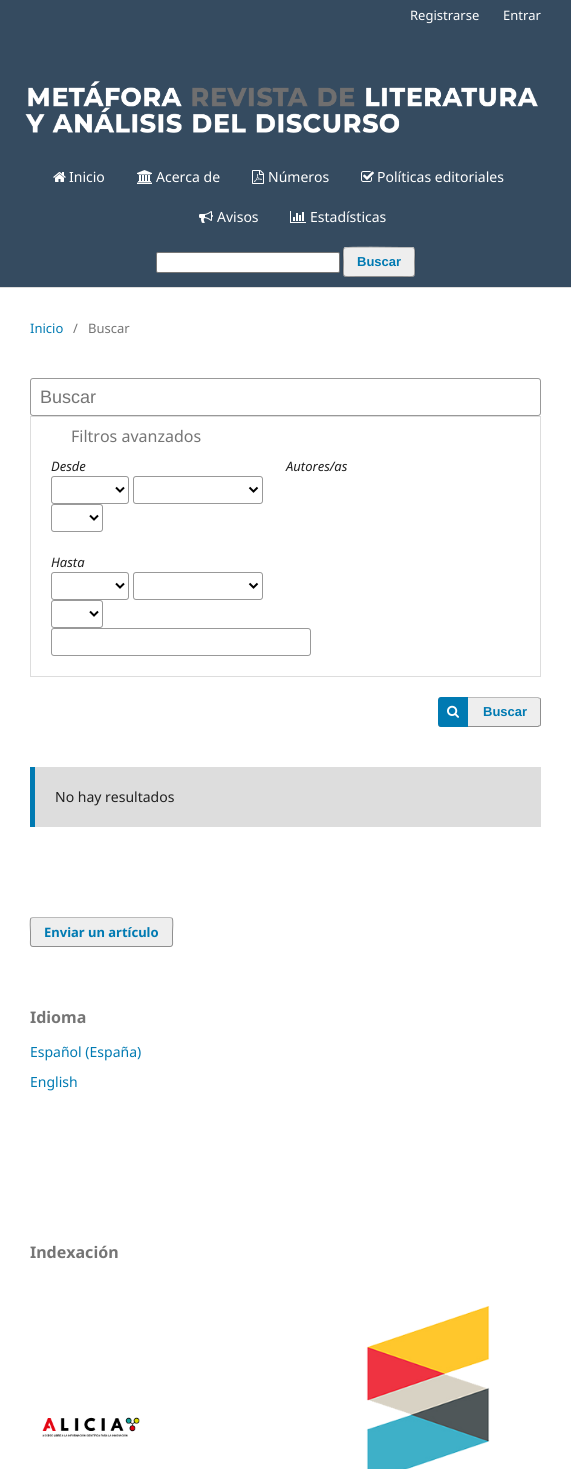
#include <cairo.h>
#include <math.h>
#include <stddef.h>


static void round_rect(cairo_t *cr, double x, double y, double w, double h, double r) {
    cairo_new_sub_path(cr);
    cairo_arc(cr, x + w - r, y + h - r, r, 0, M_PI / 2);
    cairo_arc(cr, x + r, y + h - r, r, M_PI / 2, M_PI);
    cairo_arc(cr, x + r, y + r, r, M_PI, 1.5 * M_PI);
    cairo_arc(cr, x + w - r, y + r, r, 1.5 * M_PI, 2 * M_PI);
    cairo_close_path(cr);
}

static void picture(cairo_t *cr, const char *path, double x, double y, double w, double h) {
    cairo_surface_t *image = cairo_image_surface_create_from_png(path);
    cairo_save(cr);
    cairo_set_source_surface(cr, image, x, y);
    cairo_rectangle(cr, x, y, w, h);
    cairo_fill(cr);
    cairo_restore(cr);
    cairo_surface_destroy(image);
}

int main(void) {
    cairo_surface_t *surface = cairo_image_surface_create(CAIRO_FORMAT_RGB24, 571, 1469);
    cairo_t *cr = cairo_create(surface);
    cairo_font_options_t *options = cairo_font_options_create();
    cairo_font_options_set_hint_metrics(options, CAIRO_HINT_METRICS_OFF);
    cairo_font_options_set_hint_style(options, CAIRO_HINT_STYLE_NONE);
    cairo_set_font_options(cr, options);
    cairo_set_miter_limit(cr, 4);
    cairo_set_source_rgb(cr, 1, 1, 1);
    cairo_paint(cr);
    cairo_set_source_rgb(cr, 0.208, 0.294, 0.376);
    cairo_rectangle(cr, 0, 0, 571, 287);
    cairo_fill(cr);
    cairo_set_source_rgb(cr, 0.867, 0.867, 0.867);
    cairo_rectangle(cr, 0, 287, 571, 1);
    cairo_fill(cr);
    cairo_select_font_face(cr, "Noto Sans", CAIRO_FONT_SLANT_NORMAL, CAIRO_FONT_WEIGHT_NORMAL);
    cairo_set_font_size(cr, 13);
    cairo_set_source_rgb(cr, 1, 1, 1);
    cairo_move_to(cr, 410, 20);
    cairo_show_text(cr, "Registrarse");
    cairo_move_to(cr, 503, 20);
    cairo_show_text(cr, "Entrar");
    picture(cr, "img1.png", 25, 81, 513, 52);
    picture(cr, "img2.png", 53, 172, 13, 10);
    cairo_set_font_size(cr, 14);
    cairo_move_to(cr, 69, 182);
    cairo_show_text(cr, "Inicio");
    picture(cr, "img3.png", 137, 170, 15, 14);
    cairo_move_to(cr, 156, 182);
    cairo_show_text(cr, "Acerca de");
    picture(cr, "img4.png", 252, 170, 12, 14);
    cairo_move_to(cr, 268, 182);
    cairo_show_text(cr, "Números");
    picture(cr, "img5.png", 361, 171, 13, 11);
    cairo_move_to(cr, 377, 182);
    cairo_show_text(cr, "Políticas editoriales");
    picture(cr, "img6.png", 199, 211, 14, 12);
    cairo_move_to(cr, 217, 222);
    cairo_show_text(cr, "Avisos");
    picture(cr, "img7.png", 290, 211, 16, 12);
    cairo_move_to(cr, 310, 222);
    cairo_show_text(cr, "Estadísticas");
    round_rect(cr, 156.5, 252.5, 183, 20, 1.5);
    cairo_fill_preserve(cr);
    cairo_set_source_rgb(cr, 0.463, 0.463, 0.463);
    cairo_set_line_width(cr, 1);
    cairo_stroke(cr);
    cairo_set_source_rgb(cr, 0.933, 0.933, 0.933);
    round_rect(cr, 343, 247, 72, 30, 3);
    cairo_fill(cr);
    cairo_new_path(cr);
    cairo_move_to(cr, 344, 248);
    cairo_line_to(cr, 344.5, 248);
    cairo_curve_to(cr, 346.5, 246.5, 394.5, 247.5, 401, 247.5);
    cairo_line_to(cr, 412, 247.5);
    cairo_line_to(cr, 414, 248);
    cairo_set_source_rgb(cr, 0.733, 0.733, 0.733);
    cairo_stroke(cr);
    cairo_new_path(cr);
    cairo_move_to(cr, 414, 248);
    cairo_curve_to(cr, 415.5, 250, 414.5, 259.5, 414.5, 262);
    cairo_curve_to(cr, 414.5, 279, 417.5, 276.5, 401, 276.5);
    cairo_line_to(cr, 357, 276.5);
    cairo_curve_to(cr, 340.5, 276.5, 343.5, 279, 343.5, 262);
    cairo_curve_to(cr, 343.5, 259.5, 342.5, 250, 344, 248);
    cairo_set_source_rgba(cr, 0, 0, 0, 0.4);
    cairo_stroke(cr);
    cairo_select_font_face(cr, "Liberation Sans", CAIRO_FONT_SLANT_NORMAL, CAIRO_FONT_WEIGHT_BOLD);
    cairo_set_font_size(cr, 13);
    cairo_set_source_rgb(cr, 0, 0.478, 0.698);
    cairo_move_to(cr, 357, 266);
    cairo_show_text(cr, "Buscar");
    cairo_select_font_face(cr, "Noto Sans", CAIRO_FONT_SLANT_NORMAL, CAIRO_FONT_WEIGHT_NORMAL);
    cairo_move_to(cr, 30, 333);
    cairo_show_text(cr, "Inicio");
    cairo_set_source_rgb(cr, 0.459, 0.459, 0.459);
    cairo_move_to(cr, 73, 333);
    cairo_show_text(cr, "/");
    cairo_move_to(cr, 88, 333);
    cairo_show_text(cr, "Buscar");
    round_rect(cr, 30.5, 378.5, 510, 37, 2.5);
    cairo_set_source_rgb(cr, 0.6, 0.6, 0.6);
    cairo_stroke(cr);
    cairo_select_font_face(cr, "Liberation Sans", CAIRO_FONT_SLANT_NORMAL, CAIRO_FONT_WEIGHT_NORMAL);
    cairo_set_font_size(cr, 18);
    cairo_set_source_rgb(cr, 0.459, 0.459, 0.459);
    cairo_move_to(cr, 40, 403);
    cairo_show_text(cr, "Buscar");
    cairo_rectangle(cr, 30.5, 416.5, 510, 260);
    cairo_set_source_rgb(cr, 0.867, 0.867, 0.867);
    cairo_stroke(cr);
    cairo_select_font_face(cr, "Noto Sans", CAIRO_FONT_SLANT_NORMAL, CAIRO_FONT_WEIGHT_NORMAL);
    cairo_set_font_size(cr, 16);
    cairo_set_source_rgb(cr, 0.459, 0.459, 0.459);
    cairo_move_to(cr, 71, 442);
    cairo_show_text(cr, "Filtros avanzados");
    cairo_select_font_face(cr, "Noto Sans", CAIRO_FONT_SLANT_ITALIC, CAIRO_FONT_WEIGHT_NORMAL);
    cairo_set_font_size(cr, 13);
    cairo_set_source_rgb(cr, 0.129, 0.129, 0.129);
    cairo_move_to(cr, 51, 471);
    cairo_show_text(cr, "Desde");
    round_rect(cr, 51.5, 476.5, 77, 27, 2.5);
    cairo_set_source_rgb(cr, 0.6, 0.6, 0.6);
    cairo_stroke(cr);
    cairo_new_path(cr);
    cairo_move_to(cr, 116, 487.5);
    cairo_line_to(cr, 120, 491.5);
    cairo_line_to(cr, 124, 487.5);
    cairo_set_source_rgb(cr, 0, 0, 0);
    cairo_set_line_width(cr, 2);
    cairo_stroke(cr);
    round_rect(cr, 133.5, 476.5, 129, 27, 2.5);
    cairo_set_source_rgb(cr, 0.6, 0.6, 0.6);
    cairo_set_line_width(cr, 1);
    cairo_stroke(cr);
    cairo_new_path(cr);
    cairo_move_to(cr, 249.5, 487.5);
    cairo_line_to(cr, 253.5, 491.5);
    cairo_line_to(cr, 257.5, 487.5);
    cairo_set_source_rgb(cr, 0, 0, 0);
    cairo_set_line_width(cr, 2);
    cairo_stroke(cr);
    round_rect(cr, 51.5, 504.5, 51, 27, 2.5);
    cairo_set_source_rgb(cr, 0.6, 0.6, 0.6);
    cairo_set_line_width(cr, 1);
    cairo_stroke(cr);
    cairo_new_path(cr);
    cairo_move_to(cr, 90, 515.5);
    cairo_line_to(cr, 94, 519.5);
    cairo_line_to(cr, 98, 515.5);
    cairo_set_source_rgb(cr, 0, 0, 0);
    cairo_set_line_width(cr, 2);
    cairo_stroke(cr);
    cairo_set_source_rgb(cr, 0.129, 0.129, 0.129);
    cairo_move_to(cr, 51, 567);
    cairo_show_text(cr, "Hasta");
    round_rect(cr, 51.5, 572.5, 77, 27, 2.5);
    cairo_set_source_rgb(cr, 0.6, 0.6, 0.6);
    cairo_set_line_width(cr, 1);
    cairo_stroke(cr);
    cairo_new_path(cr);
    cairo_move_to(cr, 116, 583.5);
    cairo_line_to(cr, 120, 587.5);
    cairo_line_to(cr, 124, 583.5);
    cairo_set_source_rgb(cr, 0, 0, 0);
    cairo_set_line_width(cr, 2);
    cairo_stroke(cr);
    round_rect(cr, 133.5, 572.5, 129, 27, 2.5);
    cairo_set_source_rgb(cr, 0.6, 0.6, 0.6);
    cairo_set_line_width(cr, 1);
    cairo_stroke(cr);
    cairo_new_path(cr);
    cairo_move_to(cr, 249.5, 583.5);
    cairo_line_to(cr, 253.5, 587.5);
    cairo_line_to(cr, 257.5, 583.5);
    cairo_set_source_rgb(cr, 0, 0, 0);
    cairo_set_line_width(cr, 2);
    cairo_stroke(cr);
    round_rect(cr, 51.5, 600.5, 51, 27, 2.5);
    cairo_set_source_rgb(cr, 0.6, 0.6, 0.6);
    cairo_set_line_width(cr, 1);
    cairo_stroke(cr);
    cairo_new_path(cr);
    cairo_move_to(cr, 90, 611.5);
    cairo_line_to(cr, 94, 615.5);
    cairo_line_to(cr, 98, 611.5);
    cairo_set_source_rgb(cr, 0, 0, 0);
    cairo_set_line_width(cr, 2);
    cairo_stroke(cr);
    cairo_set_source_rgb(cr, 0.129, 0.129, 0.129);
    cairo_move_to(cr, 286, 471);
    cairo_show_text(cr, "Autores/as");
    round_rect(cr, 51.5, 628.5, 259, 27, 2.5);
    cairo_set_source_rgb(cr, 0.6, 0.6, 0.6);
    cairo_set_line_width(cr, 1);
    cairo_stroke(cr);
    cairo_set_source_rgb(cr, 0.933, 0.933, 0.933);
    round_rect(cr, 438, 697, 103, 30, 3);
    cairo_fill(cr);
    cairo_set_source_rgb(cr, 0.733, 0.733, 0.733);
    cairo_new_path(cr);
    cairo_move_to(cr, 441, 697);
    cairo_curve_to(cr, 439, 697, 438, 698, 438, 700);
    cairo_curve_to(cr, 438, 699, 439, 698, 441, 698);
    cairo_line_to(cr, 538, 698);
    cairo_line_to(cr, 539, 699);
    cairo_line_to(cr, 540, 698);
    cairo_line_to(cr, 538, 697);
    cairo_close_path(cr);
    cairo_fill(cr);
    cairo_set_source_rgba(cr, 0, 0, 0, 0.4);
    cairo_new_path(cr);
    cairo_move_to(cr, 539.5, 725.5);
    cairo_curve_to(cr, 540, 725, 540, 724.5, 540, 724);
    cairo_line_to(cr, 540, 700);
    cairo_curve_to(cr, 540, 699.5, 540, 699, 539.5, 698.5);
    cairo_line_to(cr, 540, 698);
    cairo_curve_to(cr, 541, 698, 541, 699, 541, 700);
    cairo_line_to(cr, 541, 724);
    cairo_curve_to(cr, 541, 725, 541, 726, 540, 726);
    cairo_close_path(cr);
    cairo_fill(cr);
    cairo_new_path(cr);
    cairo_move_to(cr, 441, 727);
    cairo_line_to(cr, 538, 727);
    cairo_line_to(cr, 540, 726);
    cairo_line_to(cr, 539, 725);
    cairo_line_to(cr, 538, 726);
    cairo_line_to(cr, 441, 726);
    cairo_curve_to(cr, 439, 726, 438, 725, 438, 724);
    cairo_curve_to(cr, 438, 726, 439, 727, 441, 727);
    cairo_close_path(cr);
    cairo_fill(cr);
    cairo_set_source_rgb(cr, 0, 0.478, 0.698);
    cairo_new_path(cr);
    cairo_move_to(cr, 441, 697);
    cairo_line_to(cr, 468, 697);
    cairo_line_to(cr, 468, 727);
    cairo_line_to(cr, 441, 727);
    cairo_curve_to(cr, 439.5, 727, 438, 725.5, 438, 724);
    cairo_line_to(cr, 438, 700);
    cairo_curve_to(cr, 438, 698.5, 439.5, 697, 441, 697);
    cairo_close_path(cr);
    cairo_fill(cr);
    picture(cr, "img8.png", 447, 705, 12, 13);
    cairo_select_font_face(cr, "Liberation Sans", CAIRO_FONT_SLANT_NORMAL, CAIRO_FONT_WEIGHT_BOLD);
    cairo_move_to(cr, 483, 716);
    cairo_show_text(cr, "Buscar");
    cairo_set_source_rgb(cr, 0.867, 0.867, 0.867);
    cairo_rectangle(cr, 35, 767, 506, 60);
    cairo_fill(cr);
    cairo_set_source_rgb(cr, 0, 0.478, 0.698);
    cairo_rectangle(cr, 30, 767, 5, 60);
    cairo_fill(cr);
    cairo_select_font_face(cr, "Noto Sans", CAIRO_FONT_SLANT_NORMAL, CAIRO_FONT_WEIGHT_NORMAL);
    cairo_set_font_size(cr, 14);
    cairo_set_source_rgb(cr, 0.129, 0.129, 0.129);
    cairo_move_to(cr, 55, 802);
    cairo_show_text(cr, "No hay resultados");
    cairo_set_source_rgb(cr, 0.933, 0.933, 0.933);
    round_rect(cr, 30, 917, 143, 30, 3);
    cairo_fill(cr);
    cairo_new_path(cr);
    cairo_move_to(cr, 31, 918);
    cairo_line_to(cr, 33, 917.5);
    cairo_line_to(cr, 170, 917.5);
    cairo_line_to(cr, 172, 918);
    cairo_set_source_rgb(cr, 0.733, 0.733, 0.733);
    cairo_stroke(cr);
    cairo_new_path(cr);
    cairo_move_to(cr, 172, 918);
    cairo_curve_to(cr, 173.5, 920, 172.5, 929.5, 172.5, 932);
    cairo_line_to(cr, 172.5, 940);
    cairo_curve_to(cr, 172.5, 942, 173.5, 946.5, 170, 946.5);
    cairo_line_to(cr, 33, 946.5);
    cairo_curve_to(cr, 29.5, 946.5, 30.5, 942, 30.5, 940);
    cairo_line_to(cr, 30.5, 932);
    cairo_curve_to(cr, 30.5, 929.5, 29.5, 920, 31, 918);
    cairo_set_source_rgba(cr, 0, 0, 0, 0.4);
    cairo_stroke(cr);
    cairo_select_font_face(cr, "Noto Sans", CAIRO_FONT_SLANT_NORMAL, CAIRO_FONT_WEIGHT_BOLD);
    cairo_set_font_size(cr, 13);
    cairo_set_source_rgb(cr, 0, 0.478, 0.698);
    cairo_move_to(cr, 44, 937);
    cairo_show_text(cr, "Enviar un artículo");
    cairo_set_font_size(cr, 16);
    cairo_set_source_rgb(cr, 0.459, 0.459, 0.459);
    cairo_move_to(cr, 30, 1023);
    cairo_show_text(cr, "Idioma");
    cairo_select_font_face(cr, "Noto Sans", CAIRO_FONT_SLANT_NORMAL, CAIRO_FONT_WEIGHT_NORMAL);
    cairo_set_font_size(cr, 14);
    cairo_set_source_rgb(cr, 0, 0.478, 0.698);
    cairo_move_to(cr, 30, 1057);
    cairo_show_text(cr, "Español (España)");
    cairo_move_to(cr, 30, 1087);
    cairo_show_text(cr, "English");
    cairo_select_font_face(cr, "Noto Sans", CAIRO_FONT_SLANT_NORMAL, CAIRO_FONT_WEIGHT_BOLD);
    cairo_set_font_size(cr, 16);
    cairo_set_source_rgb(cr, 0.459, 0.459, 0.459);
    cairo_move_to(cr, 30, 1258);
    cairo_show_text(cr, "Indexación");
    picture(cr, "img9.png", 42, 1417, 98, 20);
    picture(cr, "img10.png", 366, 1306, 124, 163);
    cairo_surface_write_to_png(surface, "page.png");
    cairo_font_options_destroy(options);
    cairo_destroy(cr);
    cairo_surface_destroy(surface);
    return 0;
}
